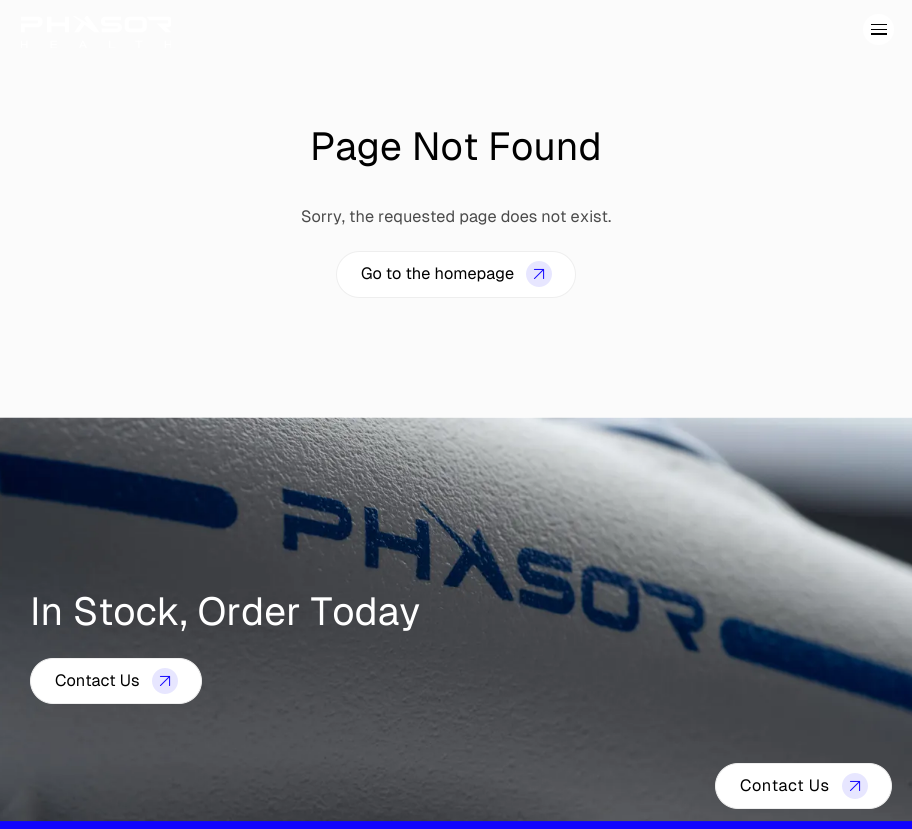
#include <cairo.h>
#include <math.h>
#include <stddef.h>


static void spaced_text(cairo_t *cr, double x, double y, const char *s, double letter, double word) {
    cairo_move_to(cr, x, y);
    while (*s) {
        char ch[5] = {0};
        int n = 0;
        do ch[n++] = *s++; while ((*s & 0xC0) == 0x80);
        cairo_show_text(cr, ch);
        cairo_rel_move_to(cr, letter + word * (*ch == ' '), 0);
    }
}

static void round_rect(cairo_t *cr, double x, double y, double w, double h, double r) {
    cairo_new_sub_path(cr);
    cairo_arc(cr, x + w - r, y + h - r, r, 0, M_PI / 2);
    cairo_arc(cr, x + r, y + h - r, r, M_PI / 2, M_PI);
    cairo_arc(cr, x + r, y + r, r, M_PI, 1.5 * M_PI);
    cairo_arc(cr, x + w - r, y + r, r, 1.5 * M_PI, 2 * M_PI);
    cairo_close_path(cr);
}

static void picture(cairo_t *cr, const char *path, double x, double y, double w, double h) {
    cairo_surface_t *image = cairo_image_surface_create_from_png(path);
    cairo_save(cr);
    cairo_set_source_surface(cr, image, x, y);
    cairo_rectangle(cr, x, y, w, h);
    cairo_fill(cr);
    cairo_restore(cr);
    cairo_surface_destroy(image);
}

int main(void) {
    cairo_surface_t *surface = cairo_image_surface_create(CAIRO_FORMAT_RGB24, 912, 829);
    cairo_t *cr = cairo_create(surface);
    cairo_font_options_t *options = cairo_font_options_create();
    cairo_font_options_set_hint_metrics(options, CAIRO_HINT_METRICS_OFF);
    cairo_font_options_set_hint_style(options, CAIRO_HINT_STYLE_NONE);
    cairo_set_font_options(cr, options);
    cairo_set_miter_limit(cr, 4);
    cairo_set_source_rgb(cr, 0.945, 0.945, 0.945);
    cairo_paint(cr);
    cairo_set_source_rgb(cr, 0.067, 0.016, 0.996);
    cairo_rectangle(cr, 0, 821, 912, 8);
    cairo_fill(cr);
    picture(cr, "img3.png", 0, 417, 912, 405);
    cairo_set_source_rgba(cr, 1, 1, 1, 0.7);
    cairo_rectangle(cr, 0, 0, 912, 418);
    cairo_fill(cr);
    picture(cr, "img1.png", 21, 16, 150, 32);
    cairo_set_source_rgb(cr, 1, 1, 1);
    cairo_arc(cr, 878.5, 29.5, 15.5, 0, 2 * M_PI);
    cairo_fill(cr);
    cairo_set_source_rgb(cr, 0, 0, 0);
    cairo_rectangle(cr, 871, 24, 16, 1);
    cairo_fill(cr);
    cairo_rectangle(cr, 871, 29, 16, 1);
    cairo_fill(cr);
    cairo_rectangle(cr, 871, 33, 16, 2);
    cairo_fill(cr);
    cairo_select_font_face(cr, "Geist", CAIRO_FONT_SLANT_NORMAL, CAIRO_FONT_WEIGHT_NORMAL);
    cairo_set_font_size(cr, 39);
    cairo_move_to(cr, 310, 160);
    cairo_show_text(cr, "Page Not Found");
    cairo_set_font_size(cr, 16.25);
    cairo_set_source_rgb(cr, 0.294, 0.294, 0.294);
    cairo_move_to(cr, 301, 222);
    cairo_show_text(cr, "Sorry, the requested page does not exist.");
    cairo_set_source_rgb(cr, 1, 1, 1);
    round_rect(cr, 336.5, 251.5, 239, 46, 23);
    cairo_fill_preserve(cr);
    cairo_set_source_rgb(cr, 0.933, 0.933, 0.933);
    cairo_set_line_width(cr, 1);
    cairo_stroke(cr);
    cairo_set_source_rgb(cr, 0, 0, 0);
    cairo_move_to(cr, 361, 279);
    cairo_show_text(cr, "Go to the homepage");
    cairo_set_source_rgb(cr, 0.906, 0.902, 1);
    cairo_new_path(cr);
    cairo_arc(cr, 539, 274, 13, 0, 2 * M_PI);
    cairo_fill(cr);
    picture(cr, "img2.png", 533, 268, 12, 11);
    cairo_set_font_size(cr, 39);
    cairo_set_source_rgb(cr, 1, 1, 1);
    cairo_move_to(cr, 30, 625);
    cairo_show_text(cr, "In Stock, Order Today");
    round_rect(cr, 30.5, 658.5, 171, 45, 22.5);
    cairo_fill_preserve(cr);
    cairo_set_source_rgb(cr, 0.933, 0.933, 0.933);
    cairo_stroke(cr);
    cairo_set_font_size(cr, 16.25);
    cairo_set_source_rgb(cr, 0, 0, 0);
    cairo_move_to(cr, 55, 686);
    cairo_show_text(cr, "Contact Us");
    cairo_set_source_rgb(cr, 0.906, 0.902, 1);
    cairo_new_path(cr);
    cairo_arc(cr, 165, 681, 13, 0, 2 * M_PI);
    cairo_fill(cr);
    picture(cr, "img2.png", 159, 675, 12, 11);
    cairo_set_source_rgb(cr, 1, 1, 1);
    round_rect(cr, 715.5, 763.5, 176, 45, 22.5);
    cairo_fill_preserve(cr);
    cairo_set_source_rgb(cr, 0.933, 0.933, 0.933);
    cairo_stroke(cr);
    cairo_set_source_rgb(cr, 0, 0, 0);
    spaced_text(cr, 740, 791, "Contact Us", 0.5, 0);
    cairo_set_source_rgb(cr, 0.906, 0.902, 1);
    cairo_new_path(cr);
    cairo_arc(cr, 855, 786, 13, 0, 2 * M_PI);
    cairo_fill(cr);
    picture(cr, "img2.png", 849, 780, 12, 11);
    cairo_surface_write_to_png(surface, "page.png");
    cairo_font_options_destroy(options);
    cairo_destroy(cr);
    cairo_surface_destroy(surface);
    return 0;
}
